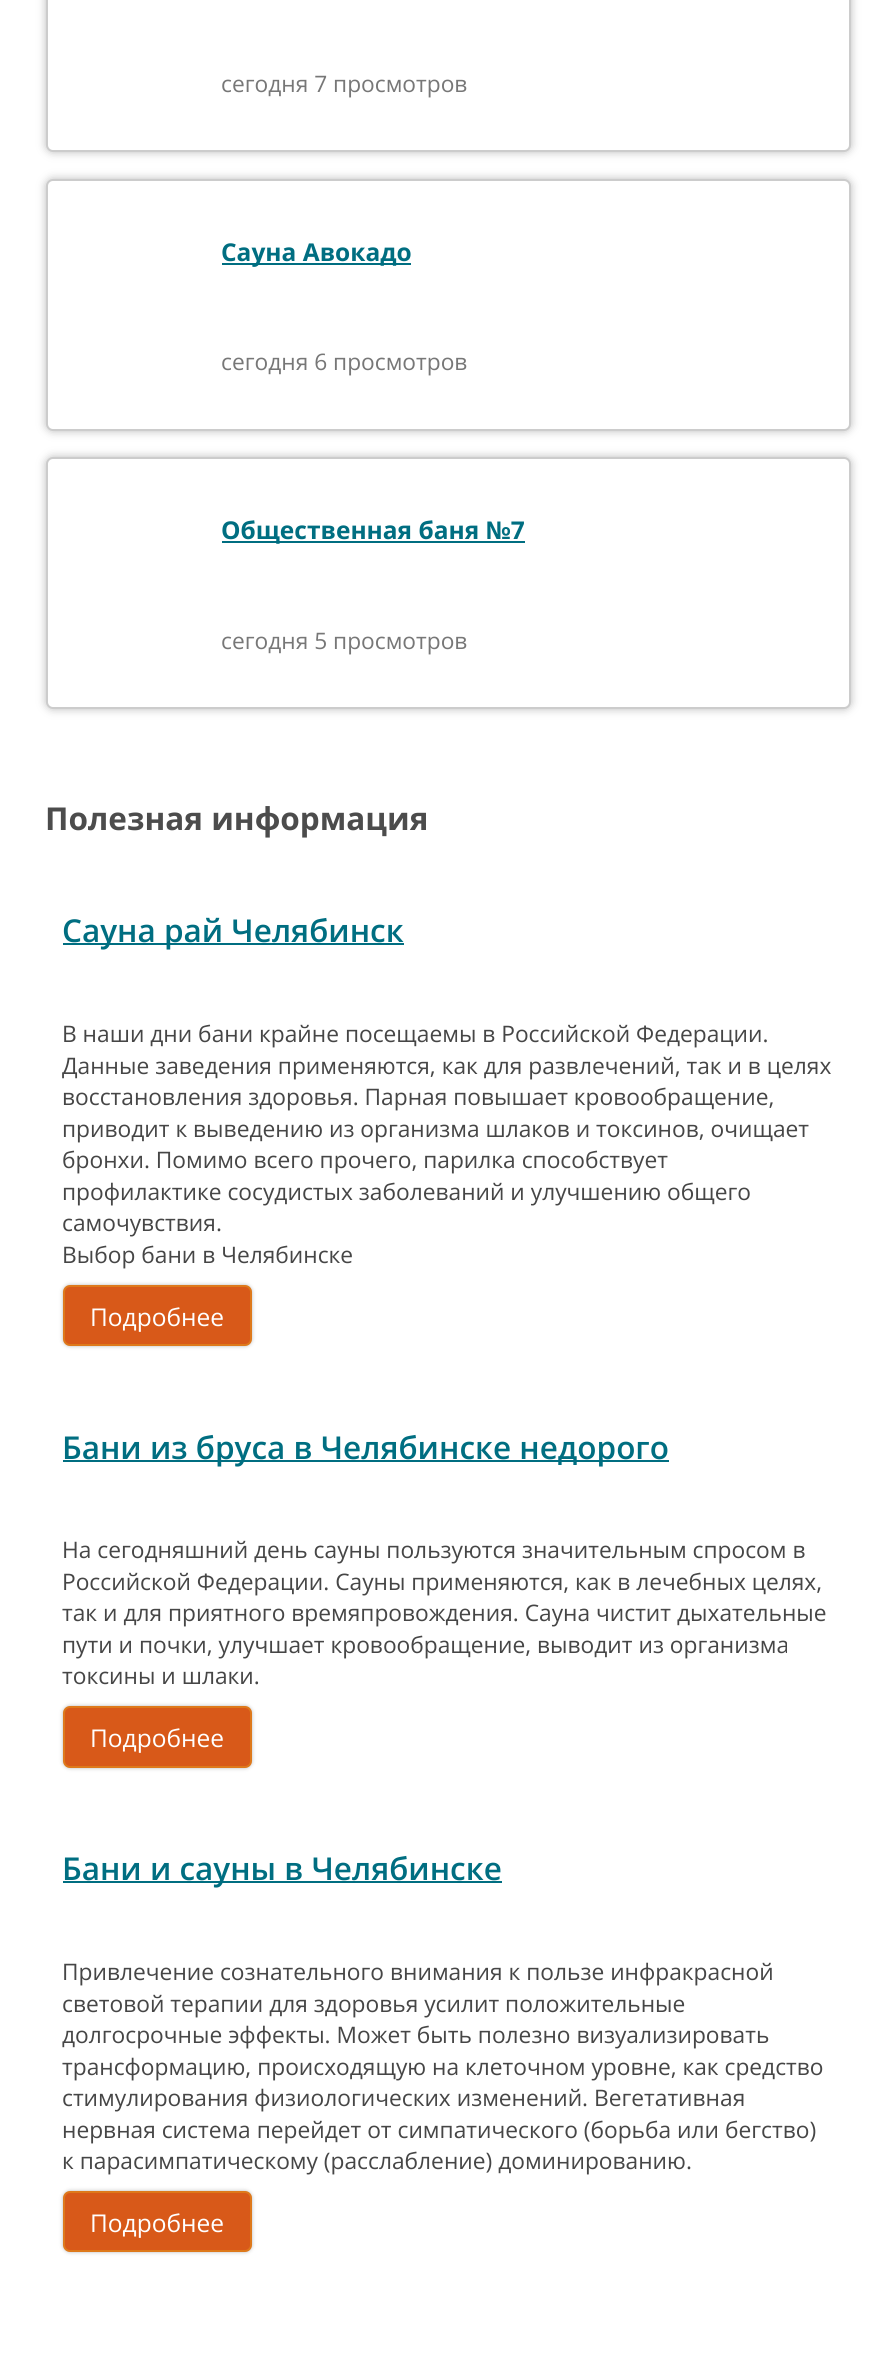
#include <cairo.h>
#include <math.h>
#include <stddef.h>


static void round_rect(cairo_t *cr, double x, double y, double w, double h, double r) {
    cairo_new_sub_path(cr);
    cairo_arc(cr, x + w - r, y + h - r, r, 0, M_PI / 2);
    cairo_arc(cr, x + r, y + h - r, r, M_PI / 2, M_PI);
    cairo_arc(cr, x + r, y + r, r, M_PI, 1.5 * M_PI);
    cairo_arc(cr, x + w - r, y + r, r, 1.5 * M_PI, 2 * M_PI);
    cairo_close_path(cr);
}

static void shadow(cairo_t *cr, double x, double y, double w, double h, double r, double blur, double alpha) {
    cairo_push_group_with_content(cr, CAIRO_CONTENT_ALPHA);
    cairo_set_operator(cr, CAIRO_OPERATOR_SOURCE);
    for (int i = 15; i >= -15 && fmin(w, h) + blur * i / 3 > 0; i -= 2) {
        double e = blur * i / 6;
        cairo_set_source_rgba(cr, 0, 0, 0, alpha * erfc((i - 1) / 8.5) / 2);
        round_rect(cr, x - e, y - e, w + 2 * e, h + 2 * e, fmax(0, fmin(r + e + blur * .6, fmin(w, h) / 2 + e)));
        cairo_fill(cr);
    }
    cairo_pattern_t *soft = cairo_pop_group(cr);
    cairo_mask(cr, soft);
    cairo_pattern_destroy(soft);
}

int main(void) {
    cairo_surface_t *surface = cairo_image_surface_create(CAIRO_FORMAT_RGB24, 893, 2357);
    cairo_t *cr = cairo_create(surface);
    cairo_font_options_t *options = cairo_font_options_create();
    cairo_font_options_set_hint_metrics(options, CAIRO_HINT_METRICS_OFF);
    cairo_font_options_set_hint_style(options, CAIRO_HINT_STYLE_NONE);
    cairo_set_font_options(cr, options);
    cairo_set_miter_limit(cr, 4);
    cairo_set_source_rgb(cr, 1, 1, 1);
    cairo_paint(cr);
    cairo_set_source_rgb(cr, 0.729, 0.729, 0.729);
    shadow(cr, 46, -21, 805, 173, 7, 4.5, 1);
    cairo_set_source_rgb(cr, 1, 1, 1);
    round_rect(cr, 47, -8, 803, 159, 6);
    cairo_fill_preserve(cr);
    cairo_set_source_rgb(cr, 0.8, 0.8, 0.8);
    cairo_stroke(cr);
    cairo_select_font_face(cr, "Open Sans", CAIRO_FONT_SLANT_NORMAL, CAIRO_FONT_WEIGHT_NORMAL);
    cairo_set_font_size(cr, 22.75);
    cairo_set_source_rgb(cr, 0.467, 0.467, 0.467);
    cairo_move_to(cr, 221, 92);
    cairo_show_text(cr, "сегодня 7 просмотров");
    cairo_set_source_rgb(cr, 0.729, 0.729, 0.729);
    shadow(cr, 46, 179, 805, 252, 7, 4.5, 1);
    cairo_set_source_rgb(cr, 1, 1, 1);
    round_rect(cr, 47, 180, 803, 250, 6);
    cairo_fill_preserve(cr);
    cairo_set_source_rgb(cr, 0.8, 0.8, 0.8);
    cairo_stroke(cr);
    cairo_set_source_rgb(cr, 0, 0.431, 0.506);
    cairo_rectangle(cr, 222, 263, 189, 2);
    cairo_fill(cr);
    cairo_select_font_face(cr, "Open Sans", CAIRO_FONT_SLANT_NORMAL, CAIRO_FONT_WEIGHT_BOLD);
    cairo_set_font_size(cr, 24.5);
    cairo_move_to(cr, 221, 261);
    cairo_show_text(cr, "Сауна Авокадо");
    cairo_select_font_face(cr, "Open Sans", CAIRO_FONT_SLANT_NORMAL, CAIRO_FONT_WEIGHT_NORMAL);
    cairo_set_font_size(cr, 22.75);
    cairo_set_source_rgb(cr, 0.467, 0.467, 0.467);
    cairo_move_to(cr, 221, 370);
    cairo_show_text(cr, "сегодня 6 просмотров");
    cairo_set_source_rgb(cr, 0.729, 0.729, 0.729);
    shadow(cr, 46, 457, 805, 252, 7, 4.5, 1);
    cairo_set_source_rgb(cr, 1, 1, 1);
    round_rect(cr, 47, 458, 803, 250, 6);
    cairo_fill_preserve(cr);
    cairo_set_source_rgb(cr, 0.8, 0.8, 0.8);
    cairo_stroke(cr);
    cairo_set_source_rgb(cr, 0, 0.431, 0.506);
    cairo_rectangle(cr, 222, 541, 303, 2);
    cairo_fill(cr);
    cairo_select_font_face(cr, "Open Sans", CAIRO_FONT_SLANT_NORMAL, CAIRO_FONT_WEIGHT_BOLD);
    cairo_set_font_size(cr, 24.5);
    cairo_move_to(cr, 221, 539);
    cairo_show_text(cr, "Общественная баня №7");
    cairo_select_font_face(cr, "Open Sans", CAIRO_FONT_SLANT_NORMAL, CAIRO_FONT_WEIGHT_NORMAL);
    cairo_set_font_size(cr, 22.75);
    cairo_set_source_rgb(cr, 0.467, 0.467, 0.467);
    cairo_move_to(cr, 221, 649);
    cairo_show_text(cr, "сегодня 5 просмотров");
    cairo_select_font_face(cr, "Open Sans", CAIRO_FONT_SLANT_NORMAL, CAIRO_FONT_WEIGHT_BOLD);
    cairo_set_font_size(cr, 31.5);
    cairo_set_source_rgb(cr, 0.298, 0.298, 0.298);
    cairo_move_to(cr, 45, 830);
    cairo_show_text(cr, "Полезная информация");
    cairo_set_source_rgb(cr, 0, 0.431, 0.506);
    cairo_rectangle(cr, 63, 943, 341, 2);
    cairo_fill(cr);
    cairo_select_font_face(cr, "Open Sans SemiBold", CAIRO_FONT_SLANT_NORMAL, CAIRO_FONT_WEIGHT_NORMAL);
    cairo_move_to(cr, 62, 942);
    cairo_show_text(cr, "Сауна рай Челябинск");
    cairo_select_font_face(cr, "Open Sans", CAIRO_FONT_SLANT_NORMAL, CAIRO_FONT_WEIGHT_NORMAL);
    cairo_set_font_size(cr, 22.75);
    cairo_set_source_rgb(cr, 0.275, 0.275, 0.275);
    cairo_move_to(cr, 62, 1042);
    cairo_show_text(cr, "В наши дни бани крайне посещаемы в Российской Федерации.");
    cairo_move_to(cr, 62, 1074);
    cairo_show_text(cr, "Данные заведения применяются, как для развлечений, так и в целях");
    cairo_move_to(cr, 62, 1105);
    cairo_show_text(cr, "восстановления здоровья. Парная повышает кровообращение,");
    cairo_move_to(cr, 62, 1137);
    cairo_show_text(cr, "приводит к выведению из организма шлаков и токсинов, очищает");
    cairo_move_to(cr, 62, 1168);
    cairo_show_text(cr, "бронхи. Помимо всего прочего, парилка способствует");
    cairo_move_to(cr, 62, 1200);
    cairo_show_text(cr, "профилактике сосудистых заболеваний и улучшению общего");
    cairo_move_to(cr, 62, 1231);
    cairo_show_text(cr, "самочувствия.");
    cairo_move_to(cr, 62, 1263);
    cairo_show_text(cr, "Выбор бани в Челябинске");
    cairo_set_source_rgb(cr, 0.729, 0.729, 0.729);
    shadow(cr, 63, 1285, 189, 61, 7, 2, 1);
    cairo_set_source_rgb(cr, 0.847, 0.349, 0.098);
    round_rect(cr, 64, 1286, 187, 59, 6);
    cairo_fill_preserve(cr);
    cairo_set_source_rgb(cr, 0.871, 0.475, 0.106);
    cairo_stroke(cr);
    cairo_set_font_size(cr, 24.5);
    cairo_set_source_rgb(cr, 1, 1, 1);
    cairo_move_to(cr, 90, 1326);
    cairo_show_text(cr, "Подробнее");
    cairo_set_source_rgb(cr, 0, 0.431, 0.506);
    cairo_rectangle(cr, 63, 1460, 606, 2);
    cairo_fill(cr);
    cairo_select_font_face(cr, "Open Sans SemiBold", CAIRO_FONT_SLANT_NORMAL, CAIRO_FONT_WEIGHT_NORMAL);
    cairo_set_font_size(cr, 31.5);
    cairo_move_to(cr, 62, 1459);
    cairo_show_text(cr, "Бани из бруса в Челябинске недорого");
    cairo_select_font_face(cr, "Open Sans", CAIRO_FONT_SLANT_NORMAL, CAIRO_FONT_WEIGHT_NORMAL);
    cairo_set_font_size(cr, 22.75);
    cairo_set_source_rgb(cr, 0.275, 0.275, 0.275);
    cairo_move_to(cr, 62, 1558);
    cairo_show_text(cr, "На сегодняшний день сауны пользуются значительным спросом в");
    cairo_move_to(cr, 62, 1590);
    cairo_show_text(cr, "Российской Федерации. Сауны применяются, как в лечебных целях,");
    cairo_move_to(cr, 62, 1621);
    cairo_show_text(cr, "так и для приятного времяпровождения. Сауна чистит дыхательные");
    cairo_move_to(cr, 62, 1653);
    cairo_show_text(cr, "пути и почки, улучшает кровообращение, выводит из организма");
    cairo_move_to(cr, 62, 1684);
    cairo_show_text(cr, "токсины и шлаки.");
    cairo_set_source_rgb(cr, 0.729, 0.729, 0.729);
    shadow(cr, 63, 1706, 189, 62, 7, 2, 1);
    cairo_set_source_rgb(cr, 0.847, 0.349, 0.098);
    round_rect(cr, 64, 1707, 187, 60, 6);
    cairo_fill_preserve(cr);
    cairo_set_source_rgb(cr, 0.871, 0.475, 0.106);
    cairo_stroke(cr);
    cairo_set_font_size(cr, 24.5);
    cairo_set_source_rgb(cr, 1, 1, 1);
    cairo_move_to(cr, 90, 1747);
    cairo_show_text(cr, "Подробнее");
    cairo_set_source_rgb(cr, 0, 0.431, 0.506);
    cairo_rectangle(cr, 63, 1881, 439, 2);
    cairo_fill(cr);
    cairo_select_font_face(cr, "Open Sans SemiBold", CAIRO_FONT_SLANT_NORMAL, CAIRO_FONT_WEIGHT_NORMAL);
    cairo_set_font_size(cr, 31.5);
    cairo_move_to(cr, 62, 1880);
    cairo_show_text(cr, "Бани и сауны в Челябинске");
    cairo_select_font_face(cr, "Open Sans", CAIRO_FONT_SLANT_NORMAL, CAIRO_FONT_WEIGHT_NORMAL);
    cairo_set_font_size(cr, 22.75);
    cairo_set_source_rgb(cr, 0.275, 0.275, 0.275);
    cairo_move_to(cr, 62, 1980);
    cairo_show_text(cr, "Привлечение сознательного внимания к пользе инфракрасной");
    cairo_move_to(cr, 62, 2012);
    cairo_show_text(cr, "световой терапии для здоровья усилит положительные");
    cairo_move_to(cr, 62, 2043);
    cairo_show_text(cr, "долгосрочные эффекты. Может быть полезно визуализировать");
    cairo_move_to(cr, 62, 2075);
    cairo_show_text(cr, "трансформацию, происходящую на клеточном уровне, как средство");
    cairo_move_to(cr, 62, 2106);
    cairo_show_text(cr, "стимулирования физиологических изменений. Вегетативная");
    cairo_move_to(cr, 62, 2138);
    cairo_show_text(cr, "нервная система перейдет от симпатического (борьба или бегство)");
    cairo_move_to(cr, 62, 2169);
    cairo_show_text(cr, "к парасимпатическому (расслабление) доминированию.");
    cairo_set_source_rgb(cr, 0.729, 0.729, 0.729);
    shadow(cr, 63, 2191, 189, 61, 7, 2, 1);
    cairo_set_source_rgb(cr, 0.847, 0.349, 0.098);
    round_rect(cr, 64, 2192, 187, 59, 6);
    cairo_fill_preserve(cr);
    cairo_set_source_rgb(cr, 0.871, 0.475, 0.106);
    cairo_stroke(cr);
    cairo_set_font_size(cr, 24.5);
    cairo_set_source_rgb(cr, 1, 1, 1);
    cairo_move_to(cr, 90, 2232);
    cairo_show_text(cr, "Подробнее");
    cairo_surface_write_to_png(surface, "page.png");
    cairo_font_options_destroy(options);
    cairo_destroy(cr);
    cairo_surface_destroy(surface);
    return 0;
}
